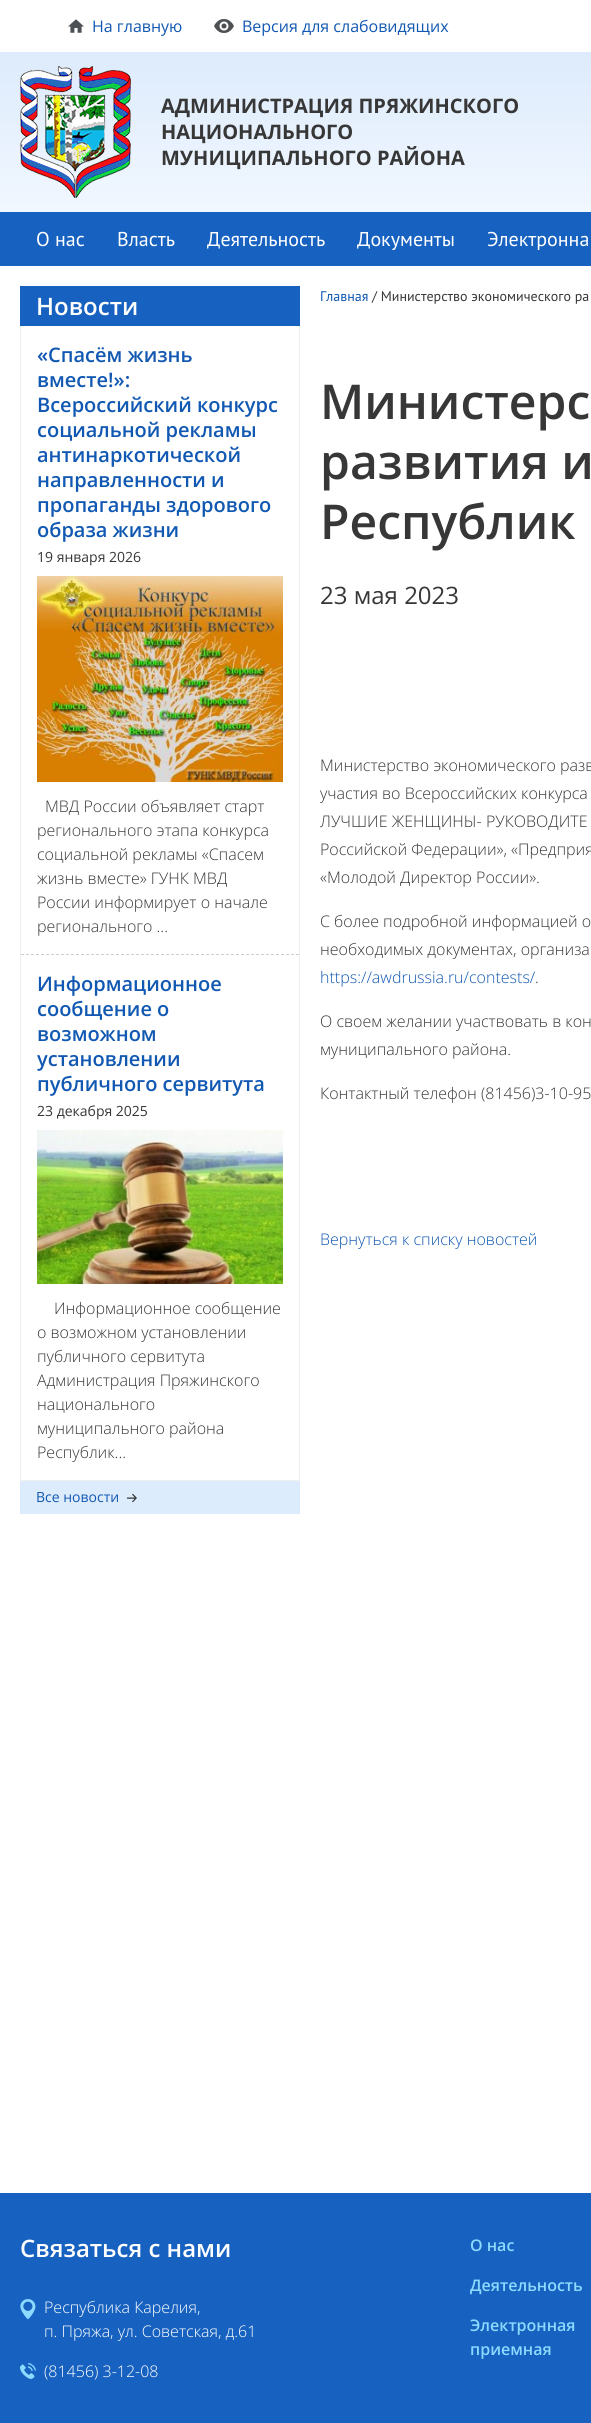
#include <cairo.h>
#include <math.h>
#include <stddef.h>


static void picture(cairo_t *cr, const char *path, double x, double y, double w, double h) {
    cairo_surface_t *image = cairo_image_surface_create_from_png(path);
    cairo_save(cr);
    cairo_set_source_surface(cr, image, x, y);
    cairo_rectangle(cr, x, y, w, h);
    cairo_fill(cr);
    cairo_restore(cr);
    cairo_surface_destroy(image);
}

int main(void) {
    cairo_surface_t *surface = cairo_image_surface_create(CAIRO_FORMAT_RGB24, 591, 2423);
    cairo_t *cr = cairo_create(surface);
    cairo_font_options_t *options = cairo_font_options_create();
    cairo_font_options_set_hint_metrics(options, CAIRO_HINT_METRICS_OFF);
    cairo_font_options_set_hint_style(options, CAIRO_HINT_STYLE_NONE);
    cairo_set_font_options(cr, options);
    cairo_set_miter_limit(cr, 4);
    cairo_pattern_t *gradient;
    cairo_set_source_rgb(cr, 1, 1, 1);
    cairo_paint(cr);
    picture(cr, "img1.png", 68, 19, 16, 14);
    cairo_select_font_face(cr, "Open Sans", CAIRO_FONT_SLANT_NORMAL, CAIRO_FONT_WEIGHT_NORMAL);
    cairo_set_font_size(cr, 16);
    cairo_set_source_rgb(cr, 0.067, 0.345, 0.698);
    cairo_move_to(cr, 92, 32);
    cairo_show_text(cr, "На главную");
    picture(cr, "img2.png", 214, 19, 20, 14);
    cairo_move_to(cr, 242, 32);
    cairo_show_text(cr, "Версия для слабовидящих");
    gradient = cairo_pattern_create_linear(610, 212, 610, 52);
    cairo_pattern_add_color_stop_rgba(gradient, 0, 0.945, 0.969, 1, 1);
    cairo_pattern_add_color_stop_rgba(gradient, 1, 0.867, 0.922, 0.988, 1);
    cairo_set_source(cr, gradient);
    cairo_pattern_destroy(gradient);
    cairo_rectangle(cr, 0, 52, 591, 160);
    cairo_fill(cr);
    picture(cr, "img3.png", 20, 66, 111, 132);
    cairo_select_font_face(cr, "Open Sans", CAIRO_FONT_SLANT_NORMAL, CAIRO_FONT_WEIGHT_BOLD);
    cairo_set_font_size(cr, 20);
    cairo_set_source_rgb(cr, 0.216, 0.216, 0.216);
    cairo_move_to(cr, 161, 113);
    cairo_show_text(cr, "АДМИНИСТРАЦИЯ ПРЯЖИНСКОГО");
    cairo_move_to(cr, 161, 139);
    cairo_show_text(cr, "НАЦИОНАЛЬНОГО");
    cairo_move_to(cr, 161, 165);
    cairo_show_text(cr, "МУНИЦИПАЛЬНОГО РАЙОНА");
    cairo_set_source_rgb(cr, 0.09, 0.384, 0.753);
    cairo_rectangle(cr, 0, 212, 591, 54);
    cairo_fill(cr);
    cairo_select_font_face(cr, "PT Sans", CAIRO_FONT_SLANT_NORMAL, CAIRO_FONT_WEIGHT_NORMAL);
    cairo_set_source_rgb(cr, 1, 1, 1);
    cairo_move_to(cr, 36, 246);
    cairo_show_text(cr, "О нас");
    cairo_move_to(cr, 117, 246);
    cairo_show_text(cr, "Власть");
    cairo_move_to(cr, 207, 246);
    cairo_show_text(cr, "Деятельность");
    cairo_move_to(cr, 357, 246);
    cairo_show_text(cr, "Документы");
    cairo_move_to(cr, 487, 246);
    cairo_show_text(cr, "Электронна");
    cairo_set_source_rgb(cr, 0.09, 0.384, 0.753);
    cairo_rectangle(cr, 20, 286, 280, 40);
    cairo_fill(cr);
    cairo_select_font_face(cr, "Open Sans SemiBold", CAIRO_FONT_SLANT_NORMAL, CAIRO_FONT_WEIGHT_NORMAL);
    cairo_set_font_size(cr, 24);
    cairo_set_source_rgb(cr, 1, 1, 1);
    cairo_move_to(cr, 36, 315);
    cairo_show_text(cr, "Новости");
    cairo_set_source_rgb(cr, 0.937, 0.937, 0.937);
    cairo_rectangle(cr, 299, 326, 1, 1155);
    cairo_fill(cr);
    cairo_rectangle(cr, 20, 1480, 280, 1);
    cairo_fill(cr);
    cairo_rectangle(cr, 20, 326, 1, 1155);
    cairo_fill(cr);
    cairo_new_path(cr);
    cairo_move_to(cr, 21, 954.5);
    cairo_line_to(cr, 299, 954.5);
    cairo_set_source_rgb(cr, 0.808, 0.808, 0.808);
    cairo_set_line_width(cr, 1);
    cairo_set_dash(cr, (double[]){3, 2}, 2, 0);
    cairo_stroke(cr);
    cairo_set_font_size(cr, 20);
    cairo_set_source_rgb(cr, 0.067, 0.345, 0.698);
    cairo_move_to(cr, 37, 362);
    cairo_show_text(cr, "«Спасём жизнь");
    cairo_move_to(cr, 37, 387);
    cairo_show_text(cr, "вместе!»:");
    cairo_move_to(cr, 37, 412);
    cairo_show_text(cr, "Всероссийский конкурс");
    cairo_move_to(cr, 37, 437);
    cairo_show_text(cr, "социальной рекламы");
    cairo_move_to(cr, 37, 462);
    cairo_show_text(cr, "антинаркотической");
    cairo_move_to(cr, 37, 487);
    cairo_show_text(cr, "направленности и");
    cairo_move_to(cr, 37, 512);
    cairo_show_text(cr, "пропаганды здорового");
    cairo_move_to(cr, 37, 537);
    cairo_show_text(cr, "образа жизни");
    cairo_select_font_face(cr, "Open Sans", CAIRO_FONT_SLANT_NORMAL, CAIRO_FONT_WEIGHT_NORMAL);
    cairo_set_font_size(cr, 14);
    cairo_set_source_rgb(cr, 0.216, 0.216, 0.216);
    cairo_move_to(cr, 37, 562);
    cairo_show_text(cr, "19 января 2026");
    picture(cr, "img4.png", 37, 576, 246, 206);
    cairo_select_font_face(cr, "Open Sans Light", CAIRO_FONT_SLANT_NORMAL, CAIRO_FONT_WEIGHT_NORMAL);
    cairo_set_font_size(cr, 16);
    cairo_move_to(cr, 45, 812);
    cairo_show_text(cr, "МВД России объявляет старт");
    cairo_move_to(cr, 37, 836);
    cairo_show_text(cr, "регионального этапа конкурса");
    cairo_move_to(cr, 37, 860);
    cairo_show_text(cr, "социальной рекламы «Спасем");
    cairo_move_to(cr, 37, 884);
    cairo_show_text(cr, "жизнь вместе» ГУНК МВД");
    cairo_move_to(cr, 37, 908);
    cairo_show_text(cr, "России информирует о начале");
    cairo_move_to(cr, 37, 932);
    cairo_show_text(cr, "регионального ...");
    cairo_select_font_face(cr, "Open Sans SemiBold", CAIRO_FONT_SLANT_NORMAL, CAIRO_FONT_WEIGHT_NORMAL);
    cairo_set_font_size(cr, 20);
    cairo_set_source_rgb(cr, 0.067, 0.345, 0.698);
    cairo_move_to(cr, 37, 991);
    cairo_show_text(cr, "Информационное");
    cairo_move_to(cr, 37, 1016);
    cairo_show_text(cr, "сообщение о");
    cairo_move_to(cr, 37, 1041);
    cairo_show_text(cr, "возможном");
    cairo_move_to(cr, 37, 1066);
    cairo_show_text(cr, "установлении");
    cairo_move_to(cr, 37, 1091);
    cairo_show_text(cr, "публичного сервитута");
    cairo_select_font_face(cr, "Open Sans", CAIRO_FONT_SLANT_NORMAL, CAIRO_FONT_WEIGHT_NORMAL);
    cairo_set_font_size(cr, 14);
    cairo_set_source_rgb(cr, 0.216, 0.216, 0.216);
    cairo_move_to(cr, 37, 1116);
    cairo_show_text(cr, "23 декабря 2025");
    picture(cr, "img5.png", 37, 1130, 246, 154);
    cairo_select_font_face(cr, "Open Sans Light", CAIRO_FONT_SLANT_NORMAL, CAIRO_FONT_WEIGHT_NORMAL);
    cairo_set_font_size(cr, 16);
    cairo_move_to(cr, 54, 1314);
    cairo_show_text(cr, "Информационное сообщение");
    cairo_move_to(cr, 37, 1338);
    cairo_show_text(cr, "о возможном установлении");
    cairo_move_to(cr, 37, 1362);
    cairo_show_text(cr, "публичного сервитута");
    cairo_move_to(cr, 37, 1386);
    cairo_show_text(cr, "Администрация Пряжинского");
    cairo_move_to(cr, 37, 1410);
    cairo_show_text(cr, "национального");
    cairo_move_to(cr, 37, 1434);
    cairo_show_text(cr, "муниципального района");
    cairo_move_to(cr, 37, 1458);
    cairo_show_text(cr, "Республик...");
    cairo_set_source_rgb(cr, 0.867, 0.922, 0.988);
    cairo_rectangle(cr, 20, 1481, 280, 33);
    cairo_fill(cr);
    cairo_select_font_face(cr, "Open Sans", CAIRO_FONT_SLANT_NORMAL, CAIRO_FONT_WEIGHT_NORMAL);
    cairo_set_font_size(cr, 14);
    cairo_set_source_rgb(cr, 0.067, 0.345, 0.698);
    cairo_move_to(cr, 36, 1502);
    cairo_show_text(cr, "Все новости");
    picture(cr, "img6.png", 127, 1493, 10, 10);
    cairo_select_font_face(cr, "PT Sans", CAIRO_FONT_SLANT_NORMAL, CAIRO_FONT_WEIGHT_NORMAL);
    cairo_move_to(cr, 320, 301);
    cairo_show_text(cr, "Главная");
    cairo_set_source_rgb(cr, 0.216, 0.216, 0.216);
    cairo_move_to(cr, 372, 301);
    cairo_show_text(cr, "/ Министерство экономического ра");
    cairo_select_font_face(cr, "Open Sans SemiBold", CAIRO_FONT_SLANT_NORMAL, CAIRO_FONT_WEIGHT_NORMAL);
    cairo_set_font_size(cr, 48);
    cairo_move_to(cr, 320, 419);
    cairo_show_text(cr, "Министерс");
    cairo_move_to(cr, 320, 479);
    cairo_show_text(cr, "развития и");
    cairo_move_to(cr, 320, 539);
    cairo_show_text(cr, "Республик");
    cairo_select_font_face(cr, "Open Sans", CAIRO_FONT_SLANT_NORMAL, CAIRO_FONT_WEIGHT_NORMAL);
    cairo_set_font_size(cr, 24);
    cairo_move_to(cr, 320, 604);
    cairo_show_text(cr, "23 мая 2023");
    cairo_select_font_face(cr, "Open Sans Light", CAIRO_FONT_SLANT_NORMAL, CAIRO_FONT_WEIGHT_NORMAL);
    cairo_set_font_size(cr, 16);
    cairo_move_to(cr, 320, 771);
    cairo_show_text(cr, "Министерство экономического разв");
    cairo_move_to(cr, 320, 799);
    cairo_show_text(cr, "участия во Всероссийских конкурса");
    cairo_move_to(cr, 320, 827);
    cairo_show_text(cr, "ЛУЧШИЕ ЖЕНЩИНЫ- РУКОВОДИТЕ");
    cairo_move_to(cr, 320, 855);
    cairo_show_text(cr, "Российской Федерации», «Предприя");
    cairo_move_to(cr, 320, 883);
    cairo_show_text(cr, "«Молодой Директор России».");
    cairo_move_to(cr, 320, 927);
    cairo_show_text(cr, "С более подробной информацией о");
    cairo_move_to(cr, 320, 955);
    cairo_show_text(cr, "необходимых документах, организа");
    cairo_set_source_rgb(cr, 0.067, 0.345, 0.698);
    cairo_move_to(cr, 320, 983);
    cairo_show_text(cr, "https://awdrussia.ru/contests/");
    cairo_set_source_rgb(cr, 0.216, 0.216, 0.216);
    cairo_move_to(cr, 535, 983);
    cairo_show_text(cr, ".");
    cairo_move_to(cr, 320, 1027);
    cairo_show_text(cr, "О своем желании участвовать в кон");
    cairo_move_to(cr, 320, 1055);
    cairo_show_text(cr, "муниципального района.");
    cairo_move_to(cr, 320, 1099);
    cairo_show_text(cr, "Контактный телефон (81456)3-10-95");
    cairo_set_source_rgb(cr, 0.067, 0.345, 0.698);
    cairo_move_to(cr, 320, 1245);
    cairo_show_text(cr, "Вернуться к списку новостей");
    cairo_set_source_rgb(cr, 0.09, 0.384, 0.753);
    cairo_rectangle(cr, 0, 2193, 591, 230);
    cairo_fill(cr);
    cairo_select_font_face(cr, "Open Sans SemiBold", CAIRO_FONT_SLANT_NORMAL, CAIRO_FONT_WEIGHT_NORMAL);
    cairo_set_font_size(cr, 24);
    cairo_set_source_rgb(cr, 1, 1, 1);
    cairo_move_to(cr, 20, 2257);
    cairo_show_text(cr, "Связаться с нами");
    picture(cr, "img7.png", 20, 2299, 16, 20);
    cairo_select_font_face(cr, "Open Sans Light", CAIRO_FONT_SLANT_NORMAL, CAIRO_FONT_WEIGHT_NORMAL);
    cairo_set_font_size(cr, 16);
    cairo_move_to(cr, 44, 2313);
    cairo_show_text(cr, "Республика Карелия,");
    cairo_move_to(cr, 44, 2337);
    cairo_show_text(cr, "п. Пряжа, ул. Советская, д.61");
    picture(cr, "img8.png", 20, 2363, 16, 16);
    cairo_move_to(cr, 44, 2377);
    cairo_show_text(cr, "(81456) 3-12-08");
    cairo_select_font_face(cr, "Open Sans SemiBold", CAIRO_FONT_SLANT_NORMAL, CAIRO_FONT_WEIGHT_NORMAL);
    cairo_set_source_rgb(cr, 0.549, 0.855, 1);
    cairo_move_to(cr, 470, 2251);
    cairo_show_text(cr, "О нас");
    cairo_move_to(cr, 470, 2291);
    cairo_show_text(cr, "Деятельность");
    cairo_move_to(cr, 470, 2331);
    cairo_show_text(cr, "Электронная");
    cairo_move_to(cr, 470, 2355);
    cairo_show_text(cr, "приемная");
    cairo_surface_write_to_png(surface, "page.png");
    cairo_font_options_destroy(options);
    cairo_destroy(cr);
    cairo_surface_destroy(surface);
    return 0;
}
